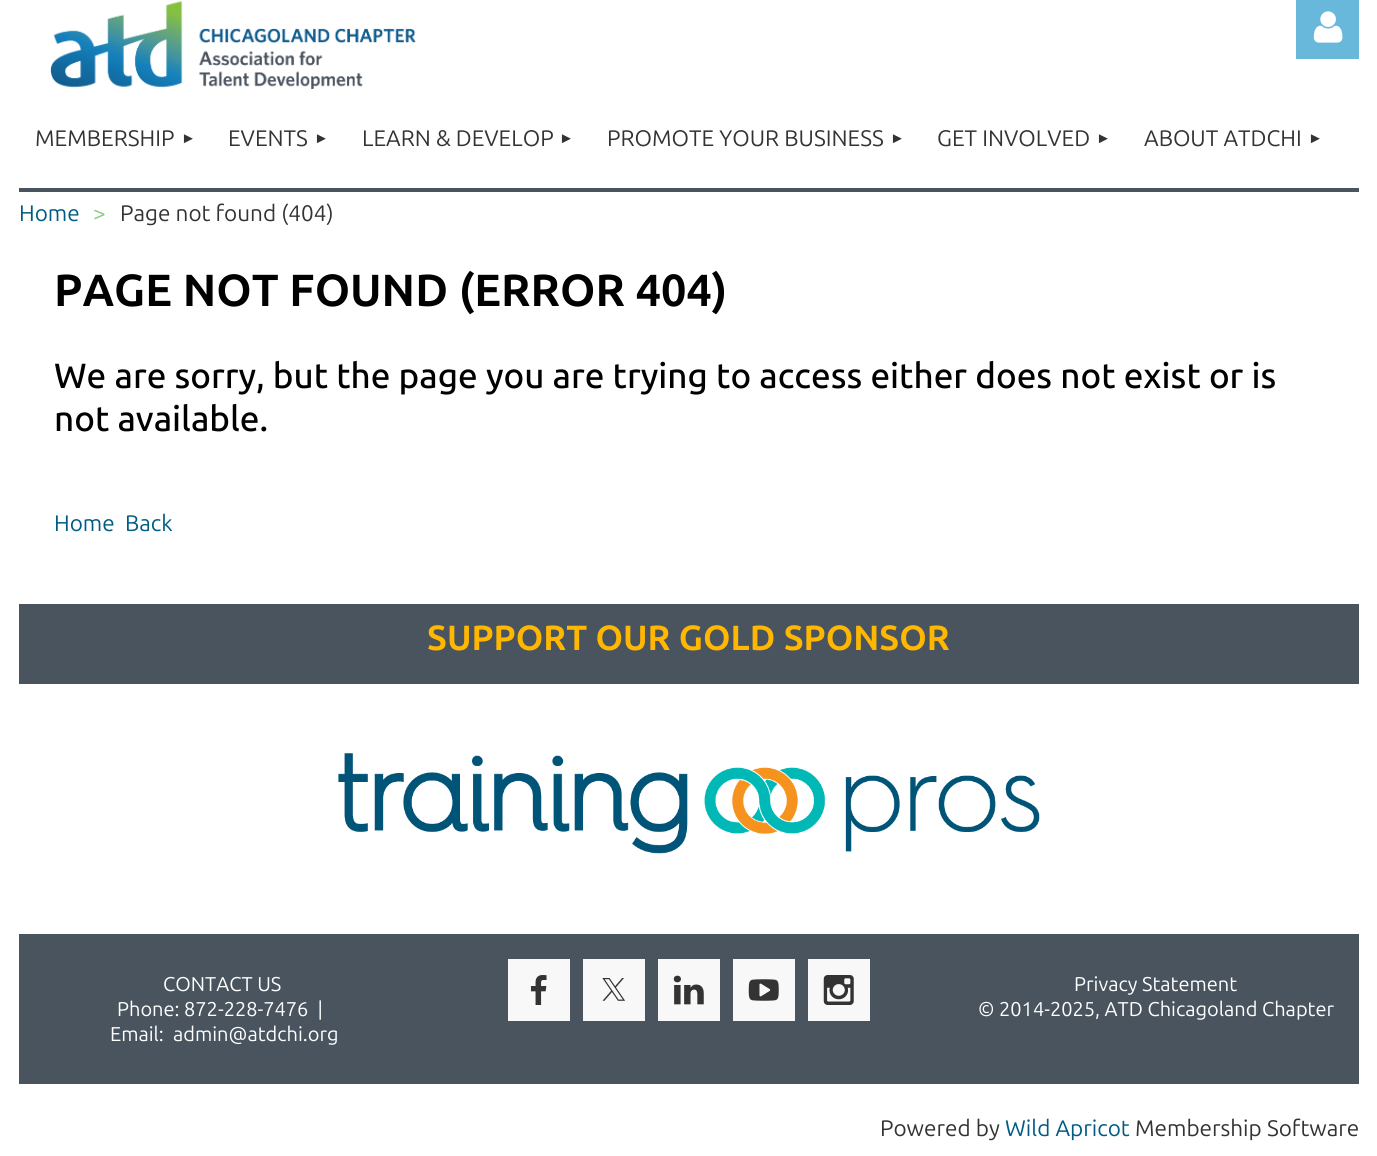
#include <cairo.h>
#include <math.h>
#include <stddef.h>


static void picture(cairo_t *cr, const char *path, double x, double y, double w, double h) {
    cairo_surface_t *image = cairo_image_surface_create_from_png(path);
    cairo_save(cr);
    cairo_set_source_surface(cr, image, x, y);
    cairo_rectangle(cr, x, y, w, h);
    cairo_fill(cr);
    cairo_restore(cr);
    cairo_surface_destroy(image);
}

int main(void) {
    cairo_surface_t *surface = cairo_image_surface_create(CAIRO_FORMAT_RGB24, 1377, 1156);
    cairo_t *cr = cairo_create(surface);
    cairo_font_options_t *options = cairo_font_options_create();
    cairo_font_options_set_hint_metrics(options, CAIRO_HINT_METRICS_OFF);
    cairo_font_options_set_hint_style(options, CAIRO_HINT_STYLE_NONE);
    cairo_set_font_options(cr, options);
    cairo_set_miter_limit(cr, 4);
    cairo_set_source_rgb(cr, 1, 1, 1);
    cairo_paint(cr);
    picture(cr, "img1.png", 50, 1, 366, 88);
    cairo_set_source_rgb(cr, 0.404, 0.722, 0.859);
    cairo_rectangle(cr, 1296, 0, 63, 59);
    cairo_fill(cr);
    picture(cr, "img2.png", 1313, 11, 30, 32);
    cairo_set_source_rgb(cr, 0.29, 0.329, 0.373);
    cairo_rectangle(cr, 19, 188, 1340, 4);
    cairo_fill(cr);
    cairo_select_font_face(cr, "Ubuntu", CAIRO_FONT_SLANT_NORMAL, CAIRO_FONT_WEIGHT_NORMAL);
    cairo_set_font_size(cr, 22.5);
    cairo_set_source_rgb(cr, 0.2, 0.2, 0.2);
    cairo_move_to(cr, 35, 146);
    cairo_show_text(cr, "MEMBERSHIP");
    cairo_select_font_face(cr, "Liberation Sans", CAIRO_FONT_SLANT_NORMAL, CAIRO_FONT_WEIGHT_NORMAL);
    cairo_set_font_size(cr, 15);
    cairo_move_to(cr, 181, 143);
    cairo_show_text(cr, "►");
    cairo_select_font_face(cr, "Ubuntu", CAIRO_FONT_SLANT_NORMAL, CAIRO_FONT_WEIGHT_NORMAL);
    cairo_set_font_size(cr, 22.5);
    cairo_move_to(cr, 228, 146);
    cairo_show_text(cr, "EVENTS");
    cairo_select_font_face(cr, "Liberation Sans", CAIRO_FONT_SLANT_NORMAL, CAIRO_FONT_WEIGHT_NORMAL);
    cairo_set_font_size(cr, 15);
    cairo_move_to(cr, 314, 143);
    cairo_show_text(cr, "►");
    cairo_select_font_face(cr, "Ubuntu", CAIRO_FONT_SLANT_NORMAL, CAIRO_FONT_WEIGHT_NORMAL);
    cairo_set_font_size(cr, 22.5);
    cairo_move_to(cr, 362, 146);
    cairo_show_text(cr, "LEARN & DEVELOP");
    cairo_select_font_face(cr, "Liberation Sans", CAIRO_FONT_SLANT_NORMAL, CAIRO_FONT_WEIGHT_NORMAL);
    cairo_set_font_size(cr, 15);
    cairo_move_to(cr, 559, 143);
    cairo_show_text(cr, "►");
    cairo_select_font_face(cr, "Ubuntu", CAIRO_FONT_SLANT_NORMAL, CAIRO_FONT_WEIGHT_NORMAL);
    cairo_set_font_size(cr, 22.5);
    cairo_move_to(cr, 607, 146);
    cairo_show_text(cr, "PROMOTE YOUR BUSINESS");
    cairo_select_font_face(cr, "Liberation Sans", CAIRO_FONT_SLANT_NORMAL, CAIRO_FONT_WEIGHT_NORMAL);
    cairo_set_font_size(cr, 15);
    cairo_move_to(cr, 890, 143);
    cairo_show_text(cr, "►");
    cairo_select_font_face(cr, "Ubuntu", CAIRO_FONT_SLANT_NORMAL, CAIRO_FONT_WEIGHT_NORMAL);
    cairo_set_font_size(cr, 22.5);
    cairo_move_to(cr, 937, 146);
    cairo_show_text(cr, "GET INVOLVED");
    cairo_select_font_face(cr, "Liberation Sans", CAIRO_FONT_SLANT_NORMAL, CAIRO_FONT_WEIGHT_NORMAL);
    cairo_set_font_size(cr, 15);
    cairo_move_to(cr, 1096, 143);
    cairo_show_text(cr, "►");
    cairo_select_font_face(cr, "Ubuntu", CAIRO_FONT_SLANT_NORMAL, CAIRO_FONT_WEIGHT_NORMAL);
    cairo_set_font_size(cr, 22.5);
    cairo_move_to(cr, 1144, 146);
    cairo_show_text(cr, "ABOUT ATDCHI");
    cairo_select_font_face(cr, "Liberation Sans", CAIRO_FONT_SLANT_NORMAL, CAIRO_FONT_WEIGHT_NORMAL);
    cairo_set_font_size(cr, 15);
    cairo_move_to(cr, 1308, 143);
    cairo_show_text(cr, "►");
    cairo_select_font_face(cr, "Ubuntu", CAIRO_FONT_SLANT_NORMAL, CAIRO_FONT_WEIGHT_NORMAL);
    cairo_set_font_size(cr, 22.5);
    cairo_set_source_rgb(cr, 0, 0.357, 0.514);
    cairo_move_to(cr, 19, 221);
    cairo_show_text(cr, "Home");
    cairo_set_source_rgb(cr, 0.529, 0.788, 0.498);
    cairo_move_to(cr, 93, 221);
    cairo_show_text(cr, ">");
    cairo_set_source_rgb(cr, 0.2, 0.2, 0.2);
    cairo_move_to(cr, 120, 221);
    cairo_show_text(cr, "Page not found (404)");
    cairo_select_font_face(cr, "Ubuntu", CAIRO_FONT_SLANT_NORMAL, CAIRO_FONT_WEIGHT_BOLD);
    cairo_set_font_size(cr, 45);
    cairo_set_source_rgb(cr, 0, 0, 0);
    cairo_move_to(cr, 54, 306);
    cairo_show_text(cr, "PAGE NOT FOUND (ERROR 404)");
    cairo_select_font_face(cr, "Ubuntu Medium", CAIRO_FONT_SLANT_NORMAL, CAIRO_FONT_WEIGHT_NORMAL);
    cairo_set_font_size(cr, 35);
    cairo_move_to(cr, 54, 388);
    cairo_show_text(cr, "We are sorry, but the page you are trying to access either does not exist or is");
    cairo_move_to(cr, 54, 431);
    cairo_show_text(cr, "not available.");
    cairo_select_font_face(cr, "Ubuntu", CAIRO_FONT_SLANT_NORMAL, CAIRO_FONT_WEIGHT_NORMAL);
    cairo_set_font_size(cr, 22.5);
    cairo_set_source_rgb(cr, 0, 0.357, 0.514);
    cairo_move_to(cr, 54, 531);
    cairo_show_text(cr, "Home");
    cairo_move_to(cr, 125, 531);
    cairo_show_text(cr, "Back");
    cairo_set_source_rgb(cr, 0.29, 0.329, 0.373);
    cairo_rectangle(cr, 19, 604, 1340, 480);
    cairo_fill(cr);
    cairo_select_font_face(cr, "Ubuntu", CAIRO_FONT_SLANT_NORMAL, CAIRO_FONT_WEIGHT_BOLD);
    cairo_set_font_size(cr, 35);
    cairo_set_source_rgb(cr, 1, 0.718, 0);
    cairo_move_to(cr, 427, 650);
    cairo_show_text(cr, "SUPPORT OUR GOLD SPONSOR");
    cairo_set_source_rgb(cr, 1, 1, 1);
    cairo_rectangle(cr, 19, 684, 1340, 250);
    cairo_fill(cr);
    picture(cr, "img3.png", 338, 753, 702, 101);
    cairo_select_font_face(cr, "Ubuntu", CAIRO_FONT_SLANT_NORMAL, CAIRO_FONT_WEIGHT_NORMAL);
    cairo_set_font_size(cr, 20);
    cairo_move_to(cr, 163, 991);
    cairo_show_text(cr, "CONTACT US");
    cairo_move_to(cr, 117, 1016);
    cairo_show_text(cr, "Phone: 872-228-7476  |");
    cairo_move_to(cr, 110, 1041);
    cairo_show_text(cr, "Email:");
    cairo_move_to(cr, 173, 1041);
    cairo_show_text(cr, "admin@atdchi.org");
    cairo_set_source_rgb(cr, 0.969, 0.969, 0.969);
    cairo_rectangle(cr, 508, 959, 62, 62);
    cairo_fill(cr);
    picture(cr, "img4.png", 530, 975, 17, 30);
    cairo_rectangle(cr, 583, 959, 62, 62);
    cairo_fill(cr);
    picture(cr, "img5.png", 602, 978, 23, 23);
    cairo_rectangle(cr, 658, 959, 62, 62);
    cairo_fill(cr);
    picture(cr, "img6.png", 673, 975, 31, 30);
    cairo_rectangle(cr, 733, 959, 62, 62);
    cairo_fill(cr);
    picture(cr, "img7.png", 748, 979, 31, 22);
    cairo_rectangle(cr, 808, 959, 62, 62);
    cairo_fill(cr);
    picture(cr, "img8.png", 823, 975, 31, 30);
    cairo_set_source_rgb(cr, 1, 1, 1);
    cairo_move_to(cr, 1074, 991);
    cairo_show_text(cr, "Privacy Statement");
    cairo_move_to(cr, 978, 1016);
    cairo_show_text(cr, "© 2014-2025, ATD Chicagoland Chapter");
    cairo_set_font_size(cr, 22.5);
    cairo_set_source_rgb(cr, 0.2, 0.2, 0.2);
    cairo_move_to(cr, 880, 1136);
    cairo_show_text(cr, "Powered by");
    cairo_set_source_rgb(cr, 0, 0.357, 0.514);
    cairo_move_to(cr, 1005, 1136);
    cairo_show_text(cr, "Wild Apricot");
    cairo_set_source_rgb(cr, 0.2, 0.2, 0.2);
    cairo_move_to(cr, 1135, 1136);
    cairo_show_text(cr, "Membership Software");
    cairo_surface_write_to_png(surface, "page.png");
    cairo_font_options_destroy(options);
    cairo_destroy(cr);
    cairo_surface_destroy(surface);
    return 0;
}
